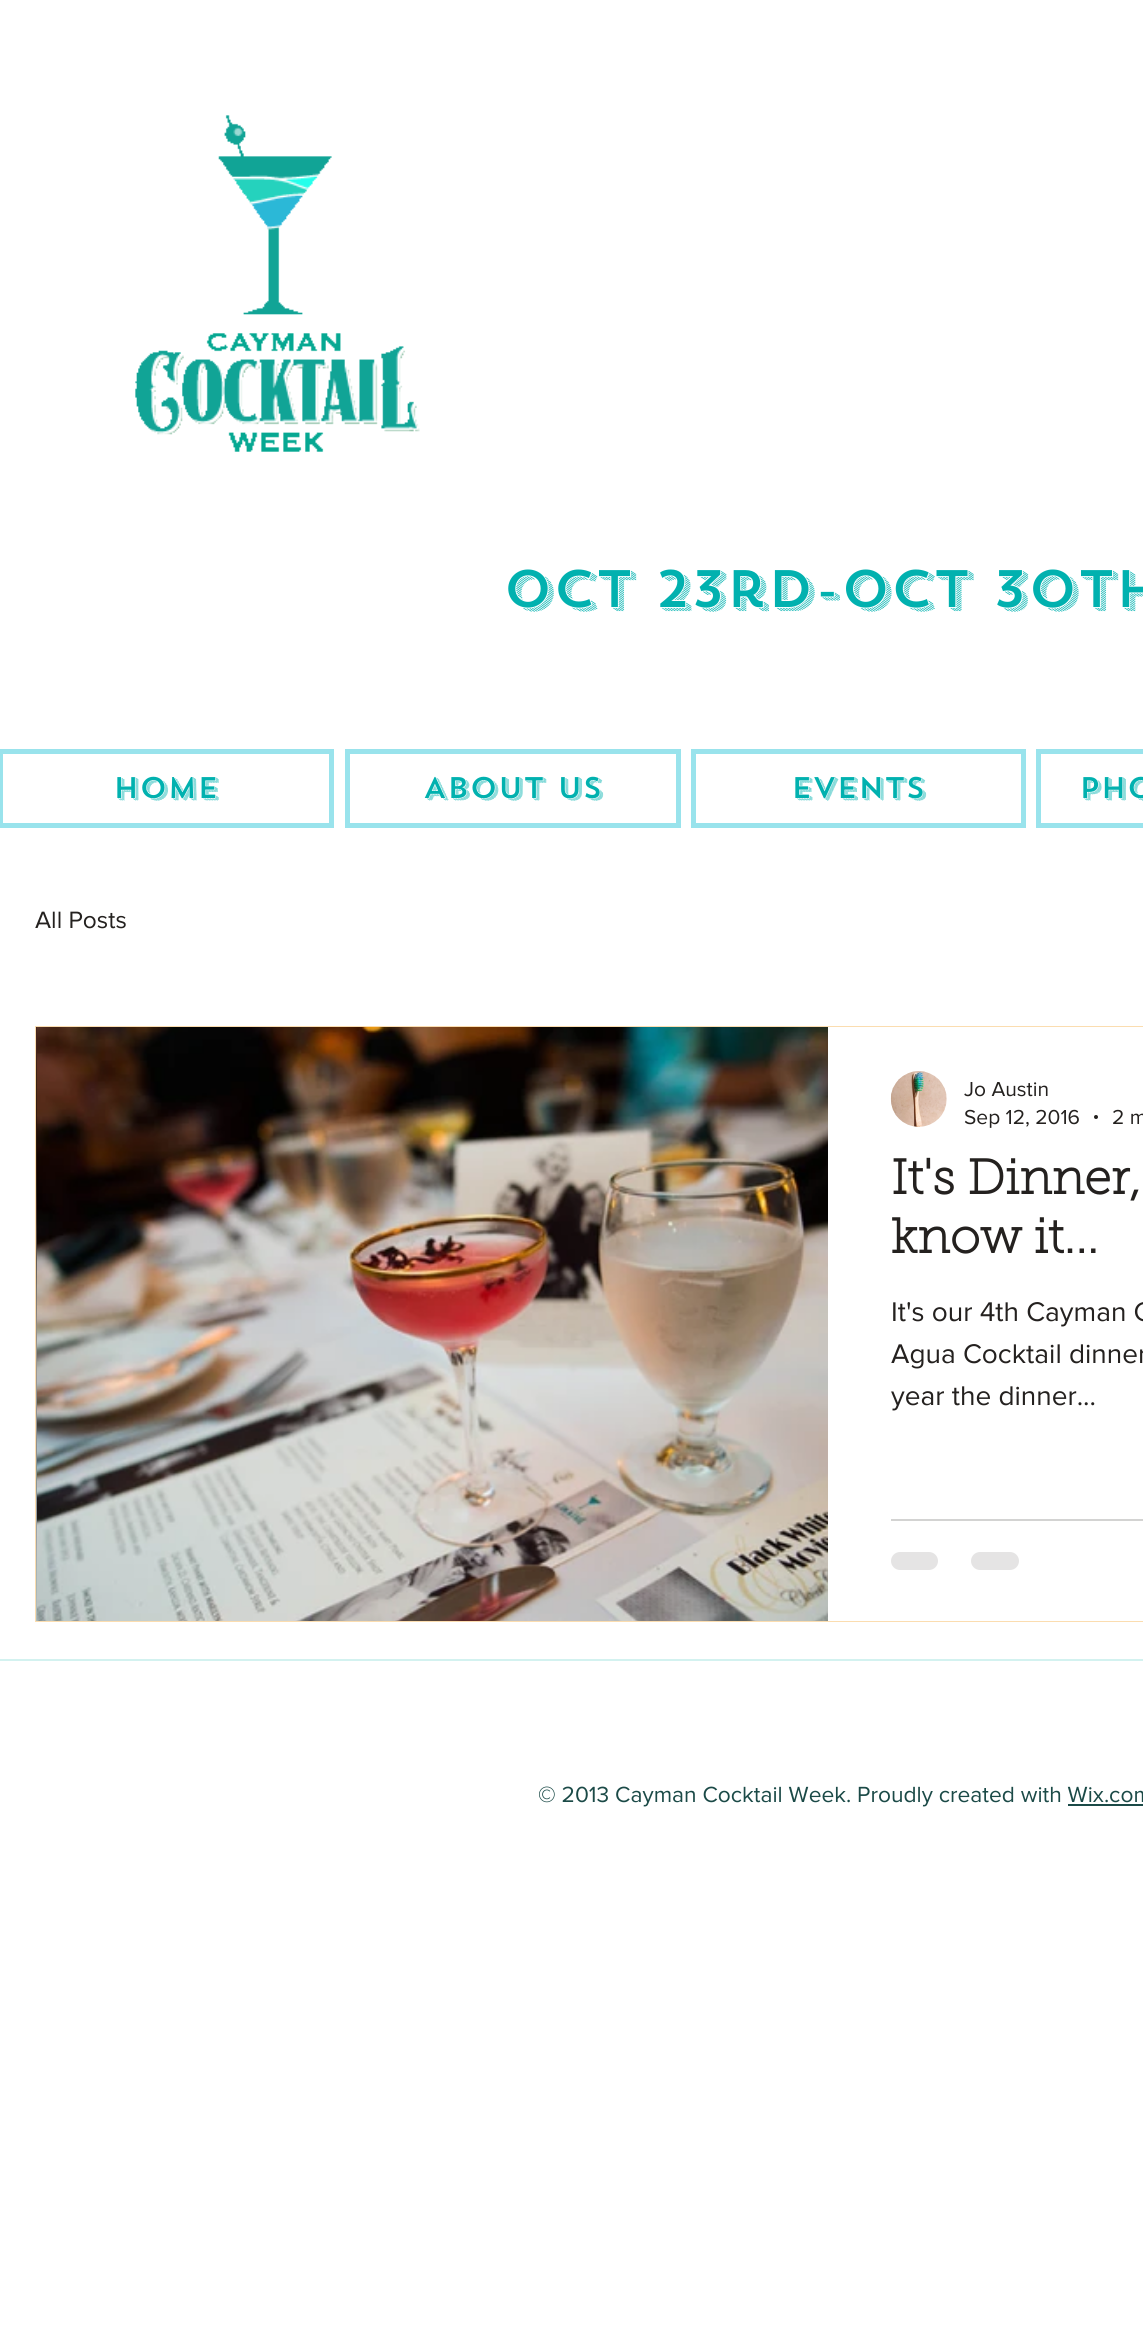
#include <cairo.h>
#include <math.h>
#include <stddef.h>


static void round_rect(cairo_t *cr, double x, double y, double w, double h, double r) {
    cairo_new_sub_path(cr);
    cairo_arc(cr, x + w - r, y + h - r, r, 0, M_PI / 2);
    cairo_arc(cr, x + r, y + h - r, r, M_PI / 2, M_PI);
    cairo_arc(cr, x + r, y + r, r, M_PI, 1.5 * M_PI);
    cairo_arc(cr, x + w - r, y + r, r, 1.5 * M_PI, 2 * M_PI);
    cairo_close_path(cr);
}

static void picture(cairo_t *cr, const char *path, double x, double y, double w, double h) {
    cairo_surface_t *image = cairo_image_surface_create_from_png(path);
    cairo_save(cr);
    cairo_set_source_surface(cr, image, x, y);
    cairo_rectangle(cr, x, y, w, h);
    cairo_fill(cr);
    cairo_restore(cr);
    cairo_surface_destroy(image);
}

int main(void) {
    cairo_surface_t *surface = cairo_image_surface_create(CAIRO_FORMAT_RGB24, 1143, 2339);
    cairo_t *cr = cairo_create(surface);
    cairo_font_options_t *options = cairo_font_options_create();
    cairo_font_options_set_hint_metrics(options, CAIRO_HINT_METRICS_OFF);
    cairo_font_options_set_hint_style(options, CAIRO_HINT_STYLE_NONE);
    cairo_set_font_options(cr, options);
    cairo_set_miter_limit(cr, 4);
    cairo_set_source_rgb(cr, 1, 1, 1);
    cairo_paint(cr);
    picture(cr, "img1.png", 135, 115, 285, 337);
    cairo_select_font_face(cr, "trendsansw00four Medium", CAIRO_FONT_SLANT_NORMAL, CAIRO_FONT_WEIGHT_NORMAL);
    cairo_set_font_size(cr, 52.5);
    cairo_set_source_rgb(cr, 0.004, 0.694, 0.686);
    cairo_move_to(cr, 503, 607);
    cairo_show_text(cr, "Oct 23rd-Oct 30th");
    cairo_rectangle(cr, 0.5, 751.5, 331, 74);
    cairo_set_source_rgb(cr, 0.6, 0.89, 0.925);
    cairo_set_line_width(cr, 5);
    cairo_stroke(cr);
    cairo_set_font_size(cr, 29.75);
    cairo_set_source_rgb(cr, 0.004, 0.694, 0.686);
    cairo_move_to(cr, 113, 798);
    cairo_show_text(cr, "HOME");
    cairo_rectangle(cr, 347.5, 751.5, 331, 74);
    cairo_set_source_rgb(cr, 0.6, 0.89, 0.925);
    cairo_stroke(cr);
    cairo_set_source_rgb(cr, 0.004, 0.694, 0.686);
    cairo_move_to(cr, 423, 798);
    cairo_show_text(cr, "ABOUT US");
    cairo_rectangle(cr, 693.5, 751.5, 330, 74);
    cairo_set_source_rgb(cr, 0.6, 0.89, 0.925);
    cairo_stroke(cr);
    cairo_set_source_rgb(cr, 0.004, 0.694, 0.686);
    cairo_move_to(cr, 791, 798);
    cairo_show_text(cr, "Events");
    cairo_rectangle(cr, 1038.5, 751.5, 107, 74);
    cairo_set_source_rgb(cr, 0.6, 0.89, 0.925);
    cairo_stroke(cr);
    cairo_set_source_rgb(cr, 0.004, 0.694, 0.686);
    cairo_move_to(cr, 1079, 798);
    cairo_show_text(cr, "PHO");
    cairo_rectangle(cr, 3.5, 854.5, 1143, 803);
    cairo_set_source_rgb(cr, 0.827, 0.949, 0.941);
    cairo_set_line_width(cr, 7);
    cairo_stroke(cr);
    cairo_set_source_rgb(cr, 1, 1, 1);
    cairo_rectangle(cr, 0, 851, 1143, 808);
    cairo_fill(cr);
    cairo_select_font_face(cr, "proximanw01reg", CAIRO_FONT_SLANT_NORMAL, CAIRO_FONT_WEIGHT_NORMAL);
    cairo_set_font_size(cr, 24.5);
    cairo_set_source_rgb(cr, 0.141, 0.129, 0.122);
    cairo_move_to(cr, 35, 928);
    cairo_show_text(cr, "All Posts");
    cairo_rectangle(cr, 36, 1027, 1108, 594);
    cairo_set_source_rgb(cr, 0.984, 0.867, 0.69);
    cairo_set_line_width(cr, 2);
    cairo_stroke(cr);
    picture(cr, "img2.png", 36, 1027, 1, 594);
    picture(cr, "img3.png", 37, 1027, 791, 594);
    cairo_set_source_rgb(cr, 1, 1, 1);
    cairo_rectangle(cr, 828, 1027, 315, 594);
    cairo_fill(cr);
    picture(cr, "img4.png", 890, 1071, 57, 56);
    cairo_set_font_size(cr, 21);
    cairo_set_source_rgb(cr, 0.141, 0.129, 0.122);
    cairo_move_to(cr, 964, 1096);
    cairo_show_text(cr, "Jo Austin");
    cairo_move_to(cr, 964, 1124);
    cairo_show_text(cr, "Sep 12, 2016");
    cairo_new_path(cr);
    cairo_arc(cr, 1096, 1117, 2, 0, 2 * M_PI);
    cairo_fill(cr);
    cairo_move_to(cr, 1112, 1124);
    cairo_show_text(cr, "2 m");
    cairo_select_font_face(cr, "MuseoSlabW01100", CAIRO_FONT_SLANT_NORMAL, CAIRO_FONT_WEIGHT_BOLD);
    cairo_set_font_size(cr, 49);
    cairo_move_to(cr, 891, 1194);
    cairo_show_text(cr, "It's Dinner,");
    cairo_move_to(cr, 891, 1253);
    cairo_show_text(cr, "know it...");
    cairo_select_font_face(cr, "proximanw01reg", CAIRO_FONT_SLANT_NORMAL, CAIRO_FONT_WEIGHT_NORMAL);
    cairo_set_font_size(cr, 28);
    cairo_move_to(cr, 891, 1321);
    cairo_show_text(cr, "It's our 4th Cayman C");
    cairo_move_to(cr, 891, 1363);
    cairo_show_text(cr, "Agua Cocktail dinner");
    cairo_move_to(cr, 891, 1405);
    cairo_show_text(cr, "year the dinner...");
    cairo_set_source_rgb(cr, 0.827, 0.827, 0.824);
    cairo_rectangle(cr, 891, 1519, 252, 2);
    cairo_fill(cr);
    cairo_set_source_rgb(cr, 0.898, 0.894, 0.894);
    round_rect(cr, 891, 1552, 47, 18, 9);
    cairo_fill(cr);
    round_rect(cr, 971, 1552, 48, 18, 9);
    cairo_fill(cr);
    cairo_set_font_size(cr, 22.75);
    cairo_set_source_rgb(cr, 0.106, 0.29, 0.278);
    cairo_move_to(cr, 538, 1802);
    cairo_show_text(cr, "© 2013 Cayman Cocktail Week. Proudly created with Wix.com");
    cairo_rectangle(cr, 1068, 1804, 75, 2);
    cairo_fill(cr);
    cairo_surface_write_to_png(surface, "page.png");
    cairo_font_options_destroy(options);
    cairo_destroy(cr);
    cairo_surface_destroy(surface);
    return 0;
}
